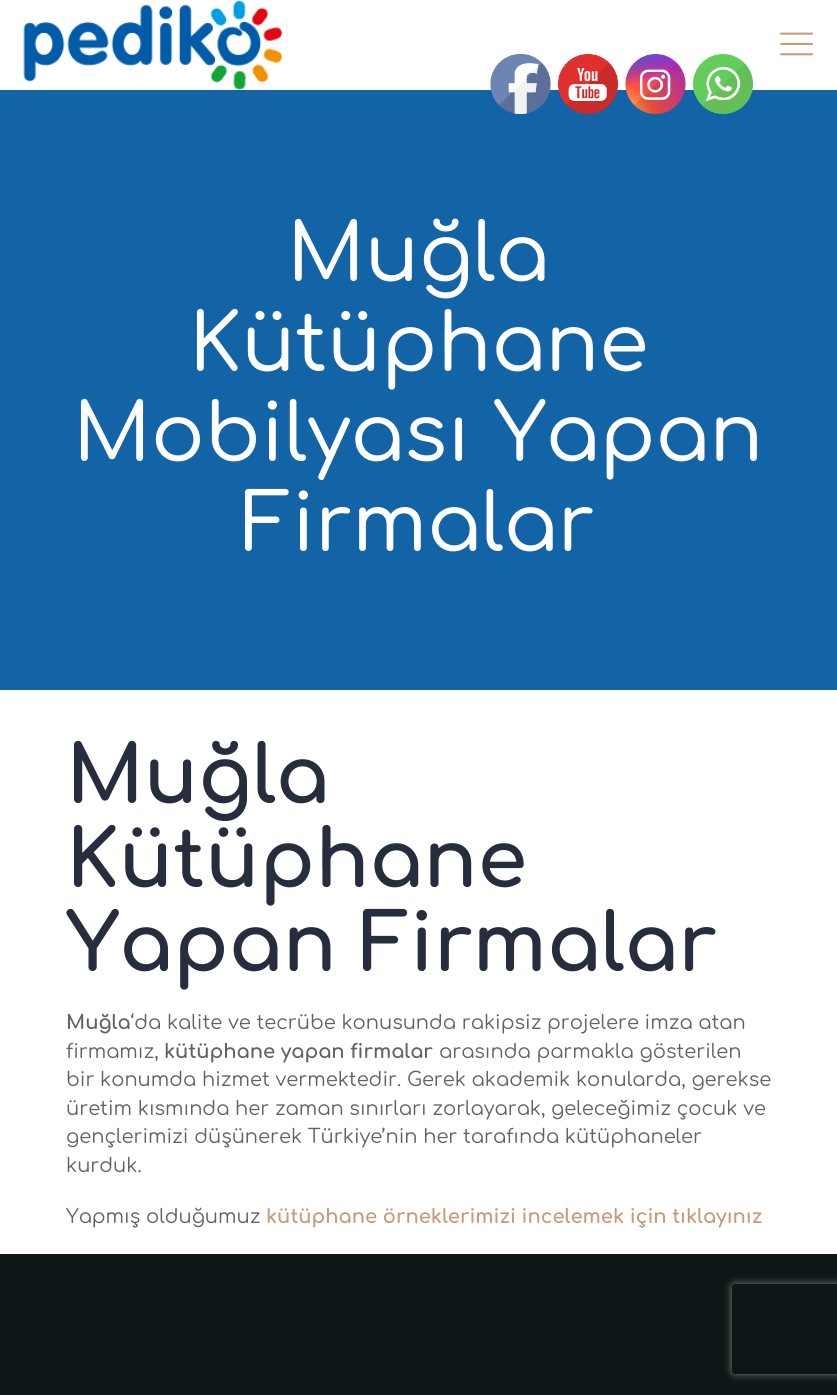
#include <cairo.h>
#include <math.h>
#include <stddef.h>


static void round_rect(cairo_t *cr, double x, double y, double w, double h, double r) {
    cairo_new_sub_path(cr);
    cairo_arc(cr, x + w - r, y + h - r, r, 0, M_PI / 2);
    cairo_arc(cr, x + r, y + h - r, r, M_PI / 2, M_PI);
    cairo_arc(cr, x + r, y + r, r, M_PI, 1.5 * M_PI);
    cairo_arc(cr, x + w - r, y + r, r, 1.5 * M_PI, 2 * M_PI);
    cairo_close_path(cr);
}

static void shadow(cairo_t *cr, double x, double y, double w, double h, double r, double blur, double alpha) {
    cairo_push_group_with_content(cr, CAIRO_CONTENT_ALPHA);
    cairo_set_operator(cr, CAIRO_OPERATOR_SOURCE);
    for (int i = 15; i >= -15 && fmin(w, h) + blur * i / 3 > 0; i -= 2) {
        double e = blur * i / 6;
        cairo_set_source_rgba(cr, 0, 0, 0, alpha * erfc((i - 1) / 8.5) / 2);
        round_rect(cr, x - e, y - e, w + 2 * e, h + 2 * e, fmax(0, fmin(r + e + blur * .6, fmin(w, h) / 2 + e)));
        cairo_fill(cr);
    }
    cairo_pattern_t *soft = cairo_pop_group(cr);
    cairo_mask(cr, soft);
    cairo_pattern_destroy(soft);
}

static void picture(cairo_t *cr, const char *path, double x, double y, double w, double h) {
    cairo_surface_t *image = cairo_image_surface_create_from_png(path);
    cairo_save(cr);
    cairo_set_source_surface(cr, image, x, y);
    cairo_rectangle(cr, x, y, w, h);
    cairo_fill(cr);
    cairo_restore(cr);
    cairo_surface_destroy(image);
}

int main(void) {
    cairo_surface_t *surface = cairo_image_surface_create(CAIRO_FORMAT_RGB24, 837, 1395);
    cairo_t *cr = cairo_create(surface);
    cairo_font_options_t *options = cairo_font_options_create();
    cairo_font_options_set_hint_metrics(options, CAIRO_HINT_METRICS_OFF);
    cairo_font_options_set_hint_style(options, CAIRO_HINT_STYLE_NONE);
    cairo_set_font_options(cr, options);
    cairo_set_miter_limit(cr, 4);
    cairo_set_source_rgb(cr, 1, 1, 1);
    cairo_paint(cr);
    cairo_set_source_rgb(cr, 0.078, 0.388, 0.655);
    cairo_rectangle(cr, 0, 90, 837, 600);
    cairo_fill(cr);
    picture(cr, "img1.png", 490, 54, 61, 60);
    picture(cr, "img2.png", 558, 54, 60, 60);
    picture(cr, "img3.png", 625, 54, 61, 60);
    picture(cr, "img4.png", 693, 54, 60, 60);
    picture(cr, "img5.png", 23, 1, 259, 89);
    picture(cr, "img6.png", 780, 32, 33, 24);
    cairo_select_font_face(cr, "Comfortaa Medium", CAIRO_FONT_SLANT_NORMAL, CAIRO_FONT_WEIGHT_NORMAL);
    cairo_set_font_size(cr, 79.5);
    cairo_set_source_rgb(cr, 1, 1, 1);
    cairo_move_to(cr, 287, 281);
    cairo_show_text(cr, "Muğla");
    cairo_move_to(cr, 189, 371);
    cairo_show_text(cr, "Kütüphane");
    cairo_move_to(cr, 73, 461);
    cairo_show_text(cr, "Mobilyası Yapan");
    cairo_move_to(cr, 242, 551);
    cairo_show_text(cr, "Firmalar");
    cairo_select_font_face(cr, "Comfortaa", CAIRO_FONT_SLANT_NORMAL, CAIRO_FONT_WEIGHT_BOLD);
    cairo_set_source_rgb(cr, 0.157, 0.176, 0.243);
    cairo_move_to(cr, 66, 803);
    cairo_show_text(cr, "Muğla");
    cairo_move_to(cr, 66, 887);
    cairo_show_text(cr, "Kütüphane");
    cairo_move_to(cr, 66, 971);
    cairo_show_text(cr, "Yapan Firmalar");
    cairo_set_font_size(cr, 19.5);
    cairo_set_source_rgb(cr, 0.384, 0.384, 0.384);
    cairo_move_to(cr, 66, 1029);
    cairo_show_text(cr, "Muğla");
    cairo_select_font_face(cr, "Comfortaa", CAIRO_FONT_SLANT_NORMAL, CAIRO_FONT_WEIGHT_NORMAL);
    cairo_move_to(cr, 130, 1029);
    cairo_show_text(cr, "‘da kalite ve tecrübe konusunda rakipsiz projelere imza atan");
    cairo_move_to(cr, 66, 1058);
    cairo_show_text(cr, "firmamız,");
    cairo_select_font_face(cr, "Comfortaa", CAIRO_FONT_SLANT_NORMAL, CAIRO_FONT_WEIGHT_BOLD);
    cairo_move_to(cr, 164, 1058);
    cairo_show_text(cr, "kütüphane yapan firmalar");
    cairo_select_font_face(cr, "Comfortaa", CAIRO_FONT_SLANT_NORMAL, CAIRO_FONT_WEIGHT_NORMAL);
    cairo_move_to(cr, 439, 1058);
    cairo_show_text(cr, "arasında parmakla gösterilen");
    cairo_move_to(cr, 66, 1086);
    cairo_show_text(cr, "bir konumda hizmet vermektedir. Gerek akademik konularda, gerekse");
    cairo_move_to(cr, 66, 1115);
    cairo_show_text(cr, "üretim kısmında her zaman sınırları zorlayarak, geleceğimiz çocuk ve");
    cairo_move_to(cr, 66, 1143);
    cairo_show_text(cr, "gençlerimizi düşünerek Türkiye’nin her tarafında kütüphaneler");
    cairo_move_to(cr, 66, 1172);
    cairo_show_text(cr, "kurduk.");
    cairo_move_to(cr, 66, 1223);
    cairo_show_text(cr, "Yapmış olduğumuz");
    cairo_select_font_face(cr, "Comfortaa", CAIRO_FONT_SLANT_NORMAL, CAIRO_FONT_WEIGHT_BOLD);
    cairo_set_source_rgb(cr, 0.78, 0.608, 0.478);
    cairo_move_to(cr, 266, 1223);
    cairo_show_text(cr, "kütüphane örneklerimizi incelemek için tıklayınız");
    cairo_set_source_rgb(cr, 0.051, 0.086, 0.086);
    cairo_rectangle(cr, 0, 1254, 837, 141);
    cairo_fill(cr);
    cairo_save(cr);
    cairo_set_fill_rule(cr, CAIRO_FILL_RULE_EVEN_ODD);
    cairo_new_path(cr);
    cairo_move_to(cr, 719, 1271);
    cairo_line_to(cr, 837, 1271);
    cairo_line_to(cr, 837, 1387);
    cairo_line_to(cr, 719, 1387);
    cairo_close_path(cr);
    cairo_move_to(cr, 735, 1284);
    cairo_line_to(cr, 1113, 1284);
    cairo_curve_to(cr, 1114.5, 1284, 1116, 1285.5, 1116, 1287);
    cairo_line_to(cr, 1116, 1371);
    cairo_curve_to(cr, 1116, 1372.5, 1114.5, 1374, 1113, 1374);
    cairo_line_to(cr, 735, 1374);
    cairo_curve_to(cr, 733.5, 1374, 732, 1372.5, 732, 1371);
    cairo_line_to(cr, 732, 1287);
    cairo_curve_to(cr, 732, 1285.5, 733.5, 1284, 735, 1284);
    cairo_close_path(cr);
    cairo_clip(cr);
    cairo_set_source_rgb(cr, 0.502, 0.502, 0.502);
    shadow(cr, 732, 1284, 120, 90, 3, 4, 1);
    cairo_restore(cr);
    cairo_surface_write_to_png(surface, "page.png");
    cairo_font_options_destroy(options);
    cairo_destroy(cr);
    cairo_surface_destroy(surface);
    return 0;
}
